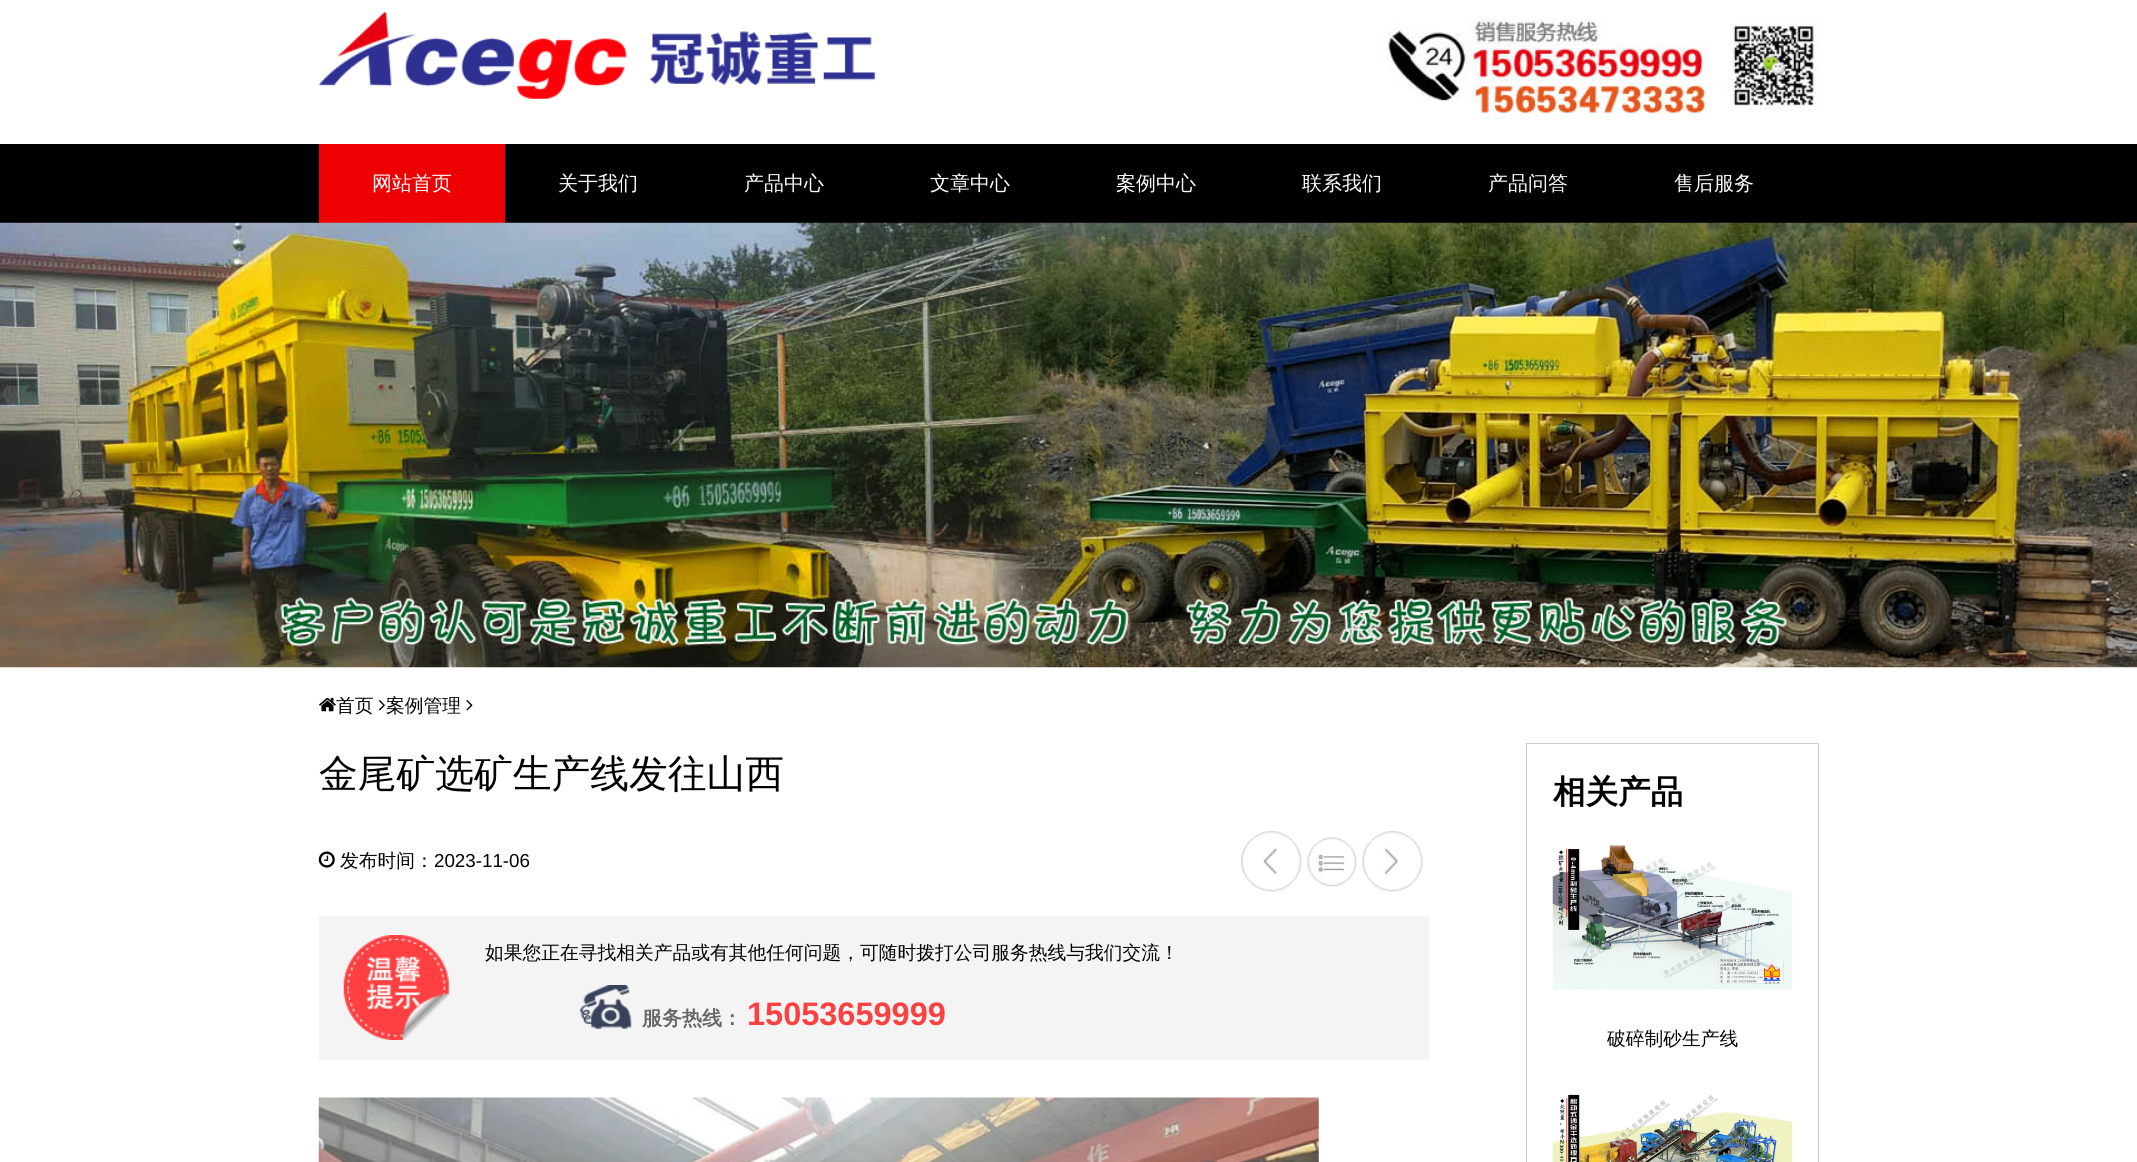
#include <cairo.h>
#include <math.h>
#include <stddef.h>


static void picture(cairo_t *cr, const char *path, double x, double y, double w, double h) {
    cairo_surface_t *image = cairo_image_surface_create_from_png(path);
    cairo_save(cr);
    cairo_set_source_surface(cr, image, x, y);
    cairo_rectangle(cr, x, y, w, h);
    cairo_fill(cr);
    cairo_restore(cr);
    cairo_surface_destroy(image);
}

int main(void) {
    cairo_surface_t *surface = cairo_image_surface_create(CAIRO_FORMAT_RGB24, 2137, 1162);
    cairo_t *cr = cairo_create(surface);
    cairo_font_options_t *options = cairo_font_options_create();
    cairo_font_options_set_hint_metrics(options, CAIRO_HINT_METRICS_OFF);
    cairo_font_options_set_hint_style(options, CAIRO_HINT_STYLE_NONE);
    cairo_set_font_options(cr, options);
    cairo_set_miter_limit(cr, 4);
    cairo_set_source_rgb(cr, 1, 1, 1);
    cairo_paint(cr);
    picture(cr, "img1.png", 318, 12, 558, 87);
    picture(cr, "img2.png", 1382, 16, 437, 97);
    cairo_set_source_rgb(cr, 0, 0, 0);
    cairo_rectangle(cr, 0, 144, 2137, 79);
    cairo_fill(cr);
    cairo_set_source_rgb(cr, 0.922, 0, 0.004);
    cairo_rectangle(cr, 319, 144, 186, 79);
    cairo_fill(cr);
    cairo_select_font_face(cr, "WenQuanYi Zen Hei Medium", CAIRO_FONT_SLANT_NORMAL, CAIRO_FONT_WEIGHT_NORMAL);
    cairo_set_font_size(cr, 20);
    cairo_set_source_rgb(cr, 1, 1, 1);
    cairo_move_to(cr, 372, 190);
    cairo_show_text(cr, "网站首页");
    cairo_move_to(cr, 558, 190);
    cairo_show_text(cr, "关于我们");
    cairo_move_to(cr, 744, 190);
    cairo_show_text(cr, "产品中心");
    cairo_move_to(cr, 930, 190);
    cairo_show_text(cr, "文章中心");
    cairo_move_to(cr, 1116, 190);
    cairo_show_text(cr, "案例中心");
    cairo_move_to(cr, 1302, 190);
    cairo_show_text(cr, "联系我们");
    cairo_move_to(cr, 1488, 190);
    cairo_show_text(cr, "产品问答");
    cairo_move_to(cr, 1674, 190);
    cairo_show_text(cr, "售后服务");
    picture(cr, "img3.png", 0, 222, 2137, 446);
    picture(cr, "img4.png", 319, 697, 17, 15);
    cairo_set_font_size(cr, 18.75);
    cairo_set_source_rgb(cr, 0, 0, 0);
    cairo_move_to(cr, 336, 712);
    cairo_show_text(cr, "首页");
    picture(cr, "img5.png", 378, 700, 7, 11);
    cairo_move_to(cr, 386, 712);
    cairo_show_text(cr, "案例管理");
    picture(cr, "img6.png", 466, 700, 7, 11);
    cairo_set_font_size(cr, 38.75);
    cairo_move_to(cr, 319, 787);
    cairo_show_text(cr, "金尾矿选矿生产线发往山西");
    picture(cr, "img7.png", 318, 851, 17, 17);
    cairo_set_font_size(cr, 18.75);
    cairo_move_to(cr, 340, 867);
    cairo_show_text(cr, "发布时间：");
    cairo_select_font_face(cr, "Liberation Sans", CAIRO_FONT_SLANT_NORMAL, CAIRO_FONT_WEIGHT_NORMAL);
    cairo_move_to(cr, 434, 867);
    cairo_show_text(cr, "2023-11-06");
    picture(cr, "img8.png", 1241, 831, 61, 61);
    picture(cr, "img9.png", 1307, 837, 50, 50);
    picture(cr, "img10.png", 1362, 831, 61, 61);
    cairo_set_source_rgb(cr, 0.957, 0.957, 0.957);
    cairo_rectangle(cr, 319, 916, 1110, 144);
    cairo_fill(cr);
    picture(cr, "img11.png", 343, 935, 107, 105);
    cairo_select_font_face(cr, "WenQuanYi Zen Hei Medium", CAIRO_FONT_SLANT_NORMAL, CAIRO_FONT_WEIGHT_NORMAL);
    cairo_set_source_rgb(cr, 0, 0, 0);
    cairo_move_to(cr, 485, 959);
    cairo_show_text(cr, "如果您正在寻找相关产品或有其他任何问题，可随时拨打公司服务热线与我们交流！");
    picture(cr, "img12.png", 580, 985, 52, 44);
    cairo_select_font_face(cr, "WenQuanYi Zen Hei", CAIRO_FONT_SLANT_NORMAL, CAIRO_FONT_WEIGHT_BOLD);
    cairo_set_font_size(cr, 20);
    cairo_set_source_rgb(cr, 0.4, 0.4, 0.4);
    cairo_move_to(cr, 642, 1025);
    cairo_show_text(cr, "服务热线：");
    cairo_select_font_face(cr, "Liberation Sans", CAIRO_FONT_SLANT_NORMAL, CAIRO_FONT_WEIGHT_BOLD);
    cairo_set_font_size(cr, 32.5);
    cairo_set_source_rgb(cr, 0.996, 0.251, 0.259);
    cairo_move_to(cr, 747, 1025);
    cairo_show_text(cr, "15053659999");
    picture(cr, "img13.png", 318, 1097, 1001, 65);
    cairo_rectangle(cr, 1526.5, 743.5, 292, 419);
    cairo_set_source_rgb(cr, 0.8, 0.8, 0.8);
    cairo_set_line_width(cr, 1);
    cairo_stroke(cr);
    cairo_select_font_face(cr, "WenQuanYi Zen Hei", CAIRO_FONT_SLANT_NORMAL, CAIRO_FONT_WEIGHT_BOLD);
    cairo_set_source_rgb(cr, 0, 0, 0);
    cairo_move_to(cr, 1553, 803);
    cairo_show_text(cr, "相关产品");
    picture(cr, "img14.png", 1552, 844, 241, 146);
    cairo_select_font_face(cr, "WenQuanYi Zen Hei Medium", CAIRO_FONT_SLANT_NORMAL, CAIRO_FONT_WEIGHT_NORMAL);
    cairo_set_font_size(cr, 18.75);
    cairo_move_to(cr, 1607, 1045);
    cairo_show_text(cr, "破碎制砂生产线");
    picture(cr, "img15.png", 1552, 1094, 241, 68);
    cairo_surface_write_to_png(surface, "page.png");
    cairo_font_options_destroy(options);
    cairo_destroy(cr);
    cairo_surface_destroy(surface);
    return 0;
}
